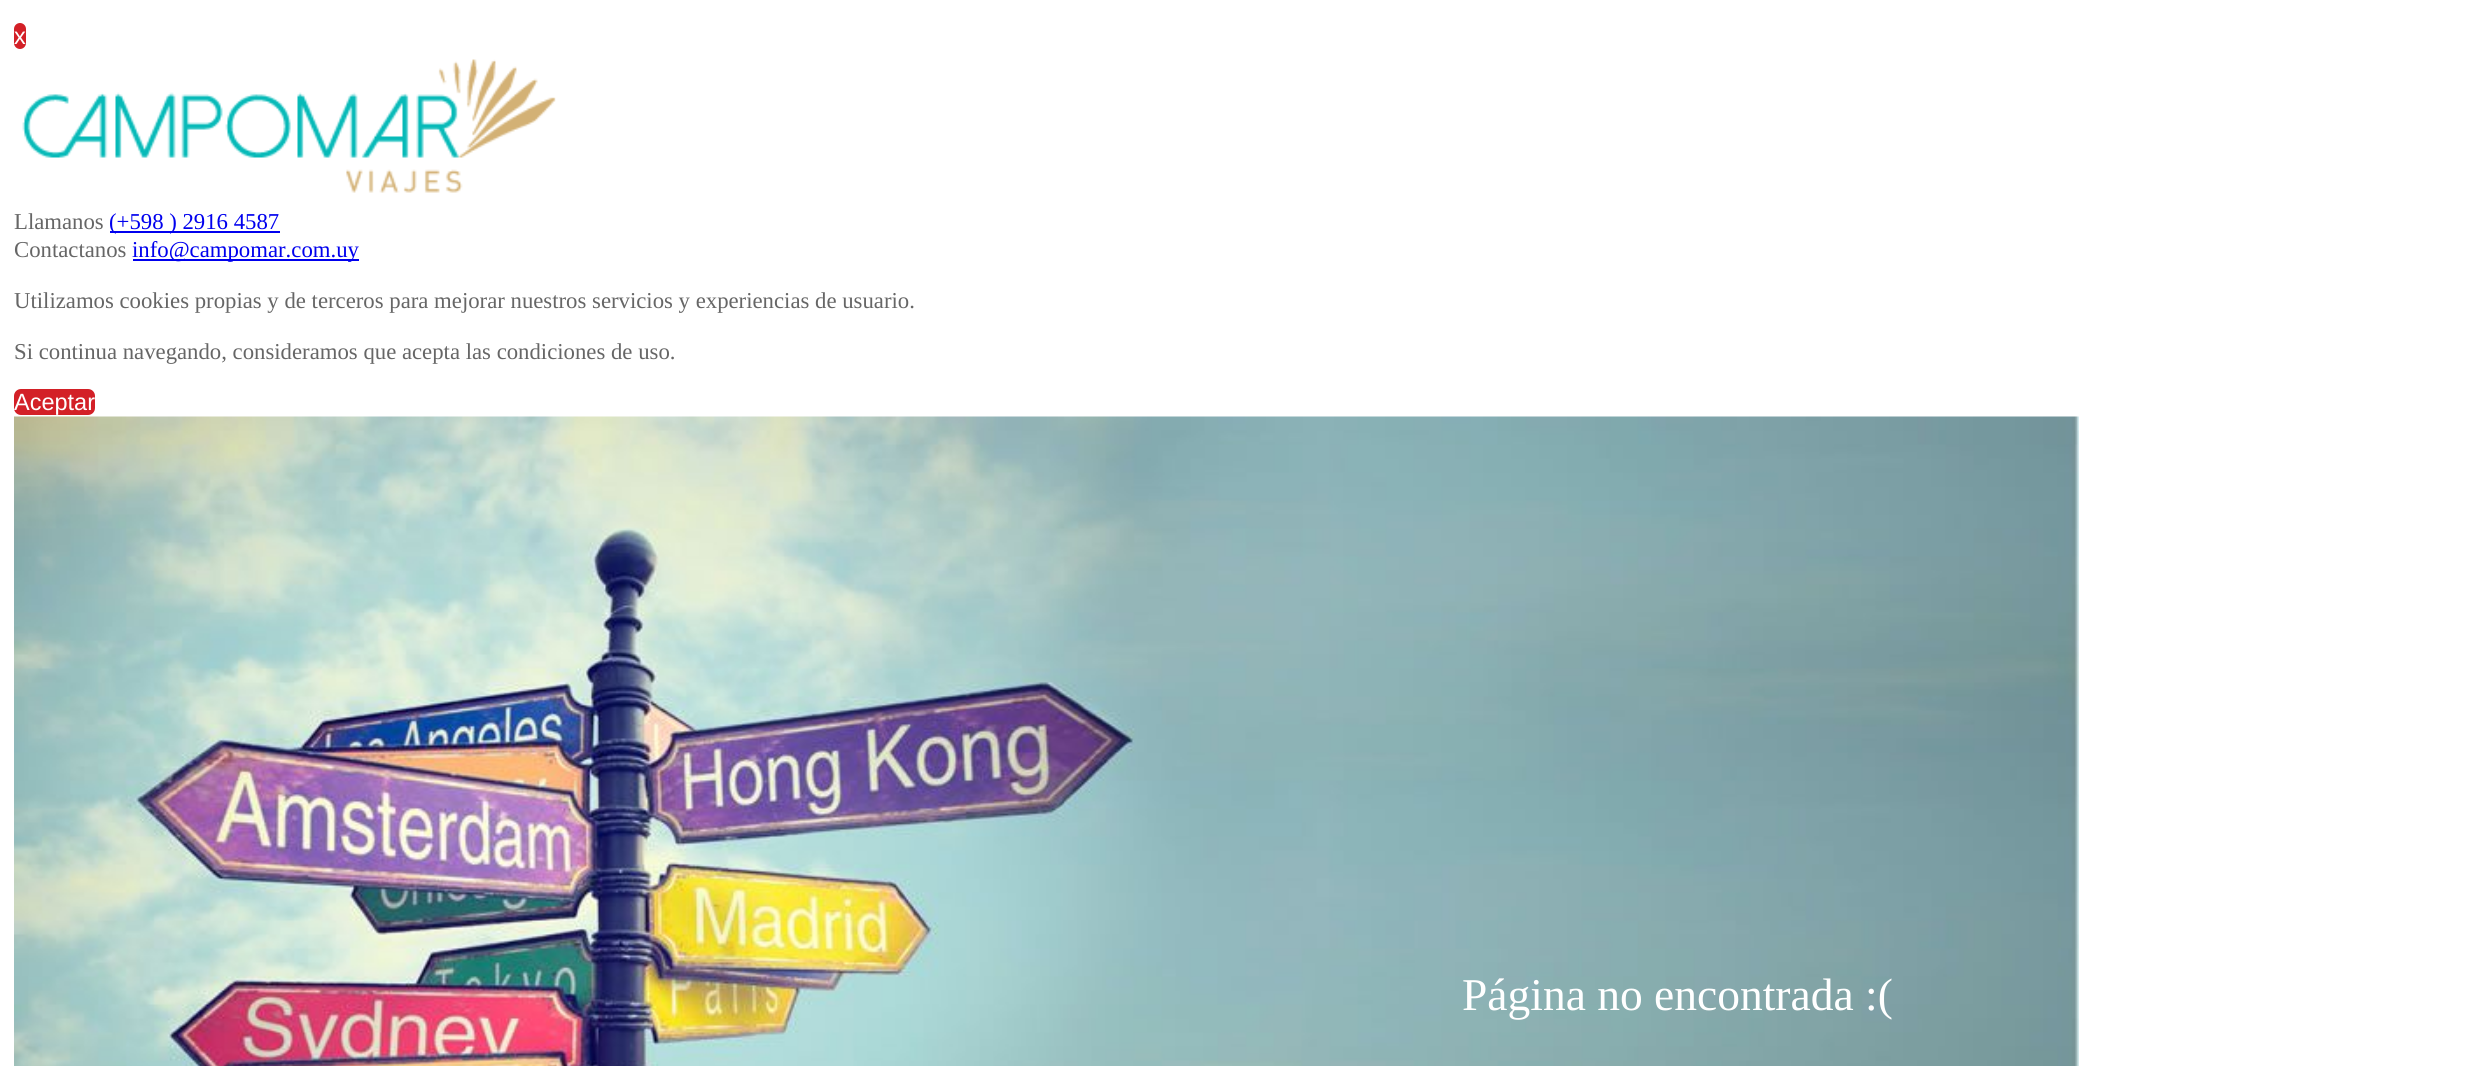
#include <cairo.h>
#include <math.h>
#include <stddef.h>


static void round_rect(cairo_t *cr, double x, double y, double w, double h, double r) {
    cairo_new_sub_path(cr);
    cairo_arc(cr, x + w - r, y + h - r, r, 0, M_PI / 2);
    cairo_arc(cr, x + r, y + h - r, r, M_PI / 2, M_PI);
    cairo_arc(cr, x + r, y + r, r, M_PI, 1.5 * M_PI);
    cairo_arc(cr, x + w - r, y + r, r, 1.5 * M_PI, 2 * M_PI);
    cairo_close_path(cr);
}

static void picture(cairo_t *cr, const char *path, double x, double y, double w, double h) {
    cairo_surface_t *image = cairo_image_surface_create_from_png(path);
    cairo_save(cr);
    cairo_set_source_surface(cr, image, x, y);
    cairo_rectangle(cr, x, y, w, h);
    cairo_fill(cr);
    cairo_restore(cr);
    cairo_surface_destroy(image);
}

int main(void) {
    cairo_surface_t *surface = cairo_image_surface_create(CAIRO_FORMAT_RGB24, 2480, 1066);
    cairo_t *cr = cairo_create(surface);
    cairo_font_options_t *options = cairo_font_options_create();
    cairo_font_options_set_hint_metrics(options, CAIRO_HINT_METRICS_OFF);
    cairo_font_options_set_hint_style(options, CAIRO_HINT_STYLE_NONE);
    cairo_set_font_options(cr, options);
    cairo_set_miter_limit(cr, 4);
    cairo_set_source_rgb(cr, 1, 1, 1);
    cairo_paint(cr);
    cairo_set_source_rgb(cr, 0.827, 0.125, 0.153);
    round_rect(cr, 14, 23, 12, 26, 6);
    cairo_fill(cr);
    cairo_select_font_face(cr, "Liberation Sans", CAIRO_FONT_SLANT_NORMAL, CAIRO_FONT_WEIGHT_NORMAL);
    cairo_set_font_size(cr, 23.5);
    cairo_set_source_rgb(cr, 1, 1, 1);
    cairo_move_to(cr, 14, 44);
    cairo_show_text(cr, "x");
    picture(cr, "img1.png", 22, 59, 534, 134);
    cairo_select_font_face(cr, "Liberation Serif", CAIRO_FONT_SLANT_NORMAL, CAIRO_FONT_WEIGHT_NORMAL);
    cairo_set_font_size(cr, 22.75);
    cairo_set_source_rgb(cr, 0.4, 0.4, 0.4);
    cairo_move_to(cr, 14, 229);
    cairo_show_text(cr, "Llamanos");
    cairo_set_source_rgb(cr, 0, 0, 0.933);
    cairo_rectangle(cr, 110, 231, 170, 2);
    cairo_fill(cr);
    cairo_move_to(cr, 109, 229);
    cairo_show_text(cr, "(+598 ) 2916 4587");
    cairo_set_source_rgb(cr, 0.4, 0.4, 0.4);
    cairo_move_to(cr, 14, 257);
    cairo_show_text(cr, "Contactanos");
    cairo_set_source_rgb(cr, 0, 0, 0.933);
    cairo_rectangle(cr, 133, 259, 226, 2);
    cairo_fill(cr);
    cairo_move_to(cr, 132, 257);
    cairo_show_text(cr, "info@campomar.com.uy");
    cairo_set_source_rgb(cr, 0.4, 0.4, 0.4);
    cairo_move_to(cr, 14, 308);
    cairo_show_text(cr, "Utilizamos cookies propias y de terceros para mejorar nuestros servicios y experiencias de usuario.");
    cairo_move_to(cr, 14, 359);
    cairo_show_text(cr, "Si continua navegando, consideramos que acepta las condiciones de uso.");
    cairo_set_source_rgb(cr, 0.827, 0.125, 0.153);
    round_rect(cr, 14, 389, 81, 26, 7);
    cairo_fill(cr);
    cairo_select_font_face(cr, "Liberation Sans", CAIRO_FONT_SLANT_NORMAL, CAIRO_FONT_WEIGHT_NORMAL);
    cairo_set_font_size(cr, 23.5);
    cairo_set_source_rgb(cr, 1, 1, 1);
    cairo_move_to(cr, 14, 410);
    cairo_show_text(cr, "Aceptar");
    picture(cr, "img2.png", 14, 416, 2065, 650);
    cairo_select_font_face(cr, "Liberation Serif", CAIRO_FONT_SLANT_NORMAL, CAIRO_FONT_WEIGHT_NORMAL);
    cairo_set_font_size(cr, 45.5);
    cairo_move_to(cr, 1462, 1010);
    cairo_show_text(cr, "Página no encontrada :(");
    cairo_surface_write_to_png(surface, "page.png");
    cairo_font_options_destroy(options);
    cairo_destroy(cr);
    cairo_surface_destroy(surface);
    return 0;
}
